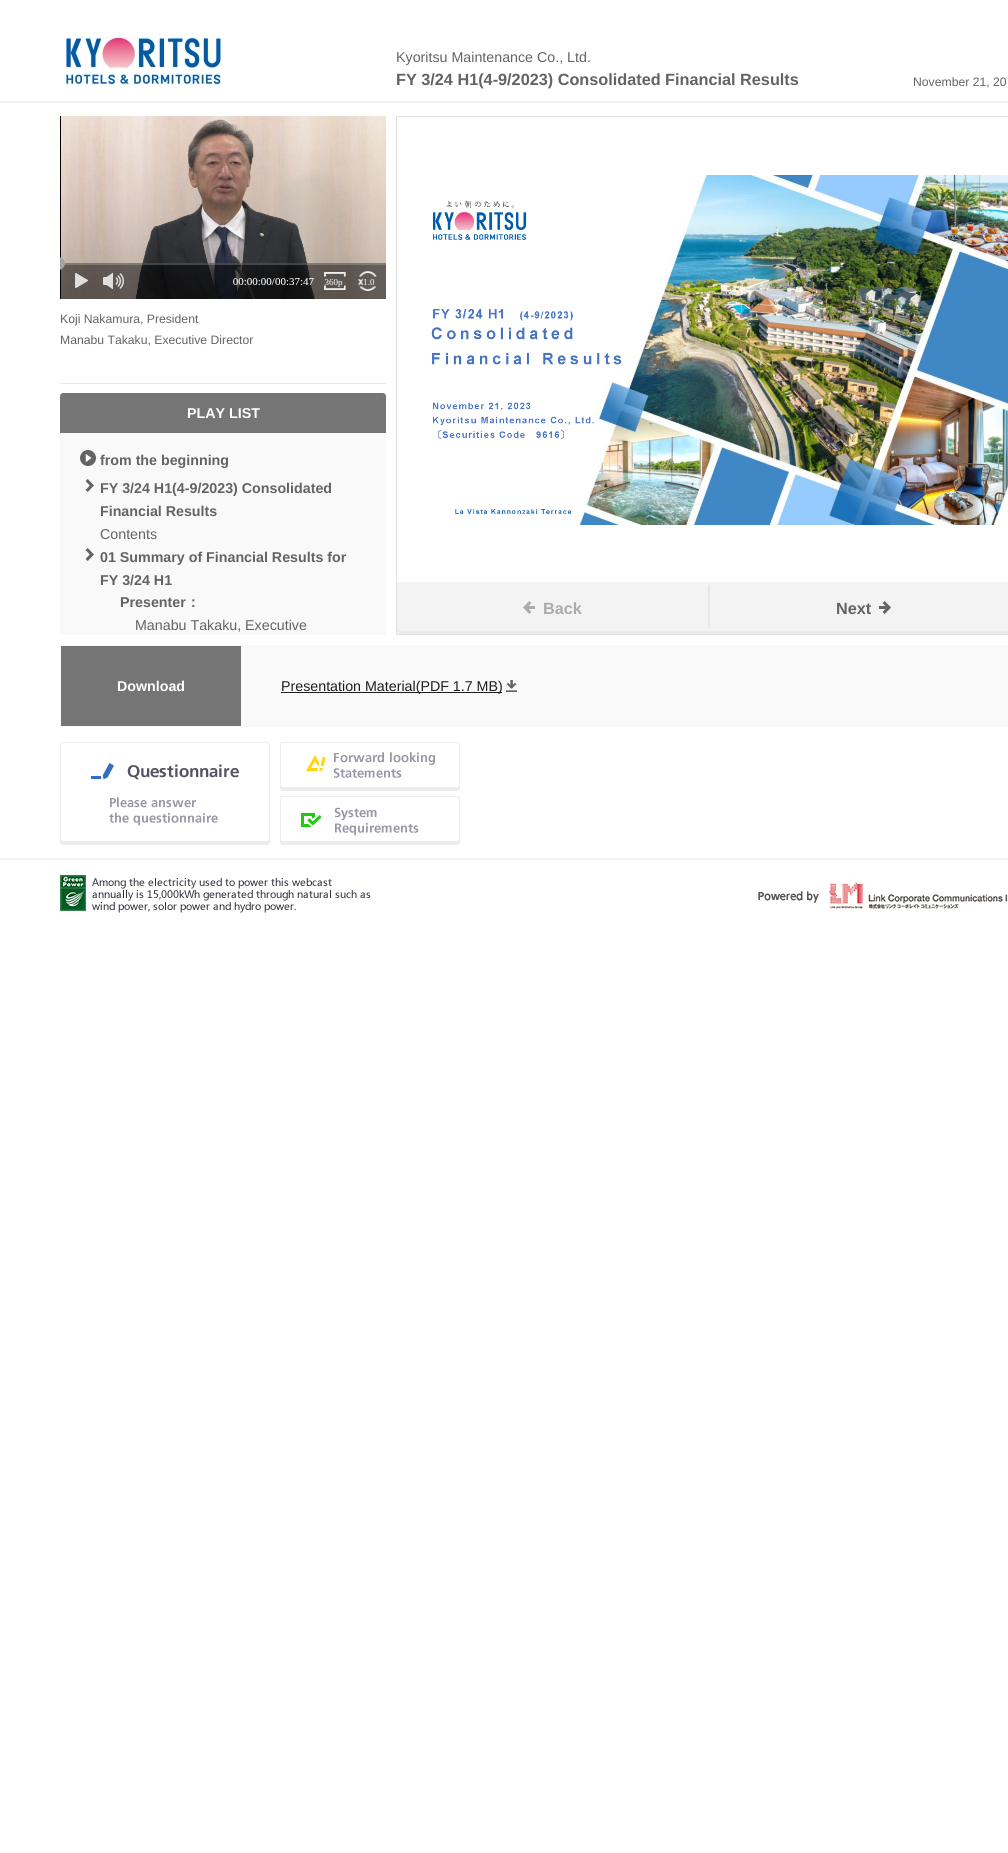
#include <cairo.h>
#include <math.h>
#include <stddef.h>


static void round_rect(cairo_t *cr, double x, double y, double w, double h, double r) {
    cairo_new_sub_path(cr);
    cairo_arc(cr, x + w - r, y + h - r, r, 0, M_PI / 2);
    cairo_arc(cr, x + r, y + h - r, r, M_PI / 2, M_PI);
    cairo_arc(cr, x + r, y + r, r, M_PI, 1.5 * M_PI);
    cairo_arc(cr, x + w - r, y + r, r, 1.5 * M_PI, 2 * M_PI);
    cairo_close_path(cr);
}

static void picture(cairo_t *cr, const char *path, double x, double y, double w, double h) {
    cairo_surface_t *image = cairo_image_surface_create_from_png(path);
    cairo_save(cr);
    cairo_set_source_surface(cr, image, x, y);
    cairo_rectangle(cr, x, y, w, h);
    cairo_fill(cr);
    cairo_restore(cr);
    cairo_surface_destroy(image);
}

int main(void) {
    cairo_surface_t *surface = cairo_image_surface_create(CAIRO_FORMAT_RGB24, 1008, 1853);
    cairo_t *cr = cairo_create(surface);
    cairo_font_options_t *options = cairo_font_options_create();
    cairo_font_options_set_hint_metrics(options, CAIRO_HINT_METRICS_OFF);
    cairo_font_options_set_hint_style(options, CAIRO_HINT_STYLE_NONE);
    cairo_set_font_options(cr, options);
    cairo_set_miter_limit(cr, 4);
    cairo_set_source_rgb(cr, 1, 1, 1);
    cairo_paint(cr);
    cairo_set_source_rgb(cr, 0.953, 0.953, 0.953);
    cairo_rectangle(cr, 0, 101, 1008, 2);
    cairo_fill(cr);
    picture(cr, "img1.png", 65, 37, 158, 48);
    cairo_select_font_face(cr, "Liberation Sans", CAIRO_FONT_SLANT_NORMAL, CAIRO_FONT_WEIGHT_NORMAL);
    cairo_set_font_size(cr, 14.25);
    cairo_set_source_rgb(cr, 0.388, 0.388, 0.396);
    cairo_move_to(cr, 396, 62);
    cairo_show_text(cr, "Kyoritsu Maintenance Co., Ltd.");
    cairo_select_font_face(cr, "Liberation Sans", CAIRO_FONT_SLANT_NORMAL, CAIRO_FONT_WEIGHT_BOLD);
    cairo_set_font_size(cr, 16.25);
    cairo_move_to(cr, 396, 85);
    cairo_show_text(cr, "FY 3/24 H1(4-9/2023) Consolidated Financial Results");
    cairo_select_font_face(cr, "Liberation Sans", CAIRO_FONT_SLANT_NORMAL, CAIRO_FONT_WEIGHT_NORMAL);
    cairo_set_font_size(cr, 12.2);
    cairo_move_to(cr, 913, 86);
    cairo_show_text(cr, "November 21, 20");
    picture(cr, "img2.png", 60, 116, 326, 183);
    cairo_set_source_rgb(cr, 0.91, 0.91, 0.91);
    cairo_rectangle(cr, 60, 383, 326, 1);
    cairo_fill(cr);
    cairo_set_source_rgb(cr, 0.388, 0.388, 0.396);
    cairo_move_to(cr, 60, 323);
    cairo_show_text(cr, "Koji Nakamura, President");
    cairo_move_to(cr, 60, 344);
    cairo_show_text(cr, "Manabu Takaku, Executive Director");
    cairo_set_source_rgb(cr, 0.459, 0.459, 0.459);
    cairo_new_path(cr);
    cairo_move_to(cr, 63, 393);
    cairo_line_to(cr, 383, 393);
    cairo_curve_to(cr, 384.5, 393, 386, 394.5, 386, 396);
    cairo_line_to(cr, 386, 433);
    cairo_line_to(cr, 60, 433);
    cairo_line_to(cr, 60, 396);
    cairo_curve_to(cr, 60, 394.5, 61.5, 393, 63, 393);
    cairo_close_path(cr);
    cairo_fill(cr);
    cairo_select_font_face(cr, "Liberation Sans", CAIRO_FONT_SLANT_NORMAL, CAIRO_FONT_WEIGHT_BOLD);
    cairo_set_font_size(cr, 14.25);
    cairo_set_source_rgb(cr, 1, 1, 1);
    cairo_move_to(cr, 187, 418);
    cairo_show_text(cr, "PLAY LIST");
    cairo_set_source_rgb(cr, 0.973, 0.973, 0.973);
    cairo_rectangle(cr, 60, 433, 326, 202);
    cairo_fill(cr);
    picture(cr, "img3.png", 80, 450, 16, 16);
    cairo_set_source_rgb(cr, 0.388, 0.388, 0.396);
    cairo_move_to(cr, 100, 465);
    cairo_show_text(cr, "from the beginning");
    picture(cr, "img4.png", 85, 479, 9, 13);
    cairo_move_to(cr, 100, 493);
    cairo_show_text(cr, "FY 3/24 H1(4-9/2023) Consolidated");
    cairo_move_to(cr, 100, 516);
    cairo_show_text(cr, "Financial Results");
    cairo_select_font_face(cr, "Liberation Sans", CAIRO_FONT_SLANT_NORMAL, CAIRO_FONT_WEIGHT_NORMAL);
    cairo_move_to(cr, 100, 539);
    cairo_show_text(cr, "Contents");
    picture(cr, "img4.png", 85, 548, 9, 13);
    cairo_select_font_face(cr, "Liberation Sans", CAIRO_FONT_SLANT_NORMAL, CAIRO_FONT_WEIGHT_BOLD);
    cairo_move_to(cr, 100, 562);
    cairo_show_text(cr, "01 Summary of Financial Results for");
    cairo_move_to(cr, 100, 585);
    cairo_show_text(cr, "FY 3/24 H1");
    cairo_move_to(cr, 120, 607);
    cairo_show_text(cr, "Presenter");
    cairo_select_font_face(cr, "WenQuanYi Zen Hei", CAIRO_FONT_SLANT_NORMAL, CAIRO_FONT_WEIGHT_BOLD);
    cairo_move_to(cr, 186, 607);
    cairo_show_text(cr, "：");
    cairo_select_font_face(cr, "Liberation Sans", CAIRO_FONT_SLANT_NORMAL, CAIRO_FONT_WEIGHT_NORMAL);
    cairo_move_to(cr, 135, 630);
    cairo_show_text(cr, "Manabu Takaku, Executive");
    cairo_rectangle(cr, 396.5, 116.5, 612, 518);
    cairo_set_source_rgb(cr, 0.878, 0.878, 0.878);
    cairo_set_line_width(cr, 1);
    cairo_stroke(cr);
    picture(cr, "img5.png", 431, 175, 577, 350);
    cairo_set_source_rgb(cr, 0.925, 0.925, 0.925);
    cairo_new_path(cr);
    cairo_move_to(cr, 397, 582);
    cairo_line_to(cr, 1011, 582);
    cairo_line_to(cr, 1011, 631);
    cairo_curve_to(cr, 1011, 632.5, 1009.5, 634, 1008, 634);
    cairo_line_to(cr, 400, 634);
    cairo_curve_to(cr, 398.5, 634, 397, 632.5, 397, 631);
    cairo_close_path(cr);
    cairo_fill(cr);
    cairo_set_source_rgb(cr, 0.953, 0.953, 0.953);
    cairo_new_path(cr);
    cairo_move_to(cr, 397, 582);
    cairo_line_to(cr, 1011, 582);
    cairo_line_to(cr, 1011, 628);
    cairo_curve_to(cr, 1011, 629.5, 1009.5, 631, 1008, 631);
    cairo_line_to(cr, 400, 631);
    cairo_curve_to(cr, 398.5, 631, 397, 629.5, 397, 628);
    cairo_close_path(cr);
    cairo_fill(cr);
    picture(cr, "img6.png", 523, 601, 12, 13);
    cairo_select_font_face(cr, "Liberation Sans", CAIRO_FONT_SLANT_NORMAL, CAIRO_FONT_WEIGHT_BOLD);
    cairo_set_font_size(cr, 16.25);
    cairo_set_source_rgb(cr, 0.671, 0.671, 0.675);
    cairo_move_to(cr, 543, 614);
    cairo_show_text(cr, "Back");
    cairo_set_source_rgb(cr, 0.91, 0.91, 0.91);
    cairo_rectangle(cr, 708, 585, 2, 43);
    cairo_fill(cr);
    picture(cr, "img7.png", 879, 601, 12, 13);
    cairo_set_source_rgb(cr, 0.388, 0.388, 0.396);
    cairo_move_to(cr, 836, 614);
    cairo_show_text(cr, "Next");
    cairo_set_source_rgb(cr, 0.973, 0.973, 0.973);
    round_rect(cr, 60, 645, 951, 82, 3);
    cairo_fill(cr);
    cairo_set_source_rgb(cr, 0.459, 0.459, 0.459);
    cairo_rectangle(cr, 61, 646, 180, 80);
    cairo_fill(cr);
    cairo_set_font_size(cr, 14.25);
    cairo_set_source_rgb(cr, 1, 1, 1);
    cairo_move_to(cr, 117, 691);
    cairo_show_text(cr, "Download");
    picture(cr, "img8.png", 506, 680, 11, 12);
    cairo_set_source_rgb(cr, 0.118, 0.118, 0.118);
    cairo_rectangle(cr, 281, 692, 221, 1);
    cairo_fill(cr);
    cairo_select_font_face(cr, "Liberation Sans", CAIRO_FONT_SLANT_NORMAL, CAIRO_FONT_WEIGHT_NORMAL);
    cairo_move_to(cr, 281, 691);
    cairo_show_text(cr, "Presentation Material(PDF 1.7 MB)");
    picture(cr, "img9.png", 60, 742, 210, 103);
    picture(cr, "img10.png", 280, 742, 180, 49);
    picture(cr, "img11.png", 280, 796, 180, 49);
    cairo_set_source_rgb(cr, 0.953, 0.953, 0.953);
    cairo_rectangle(cr, 0, 858, 1008, 2);
    cairo_fill(cr);
    picture(cr, "img12.png", 60, 875, 311, 38);
    picture(cr, "img13.png", 758, 883, 250, 26);
    cairo_surface_write_to_png(surface, "page.png");
    cairo_font_options_destroy(options);
    cairo_destroy(cr);
    cairo_surface_destroy(surface);
    return 0;
}
